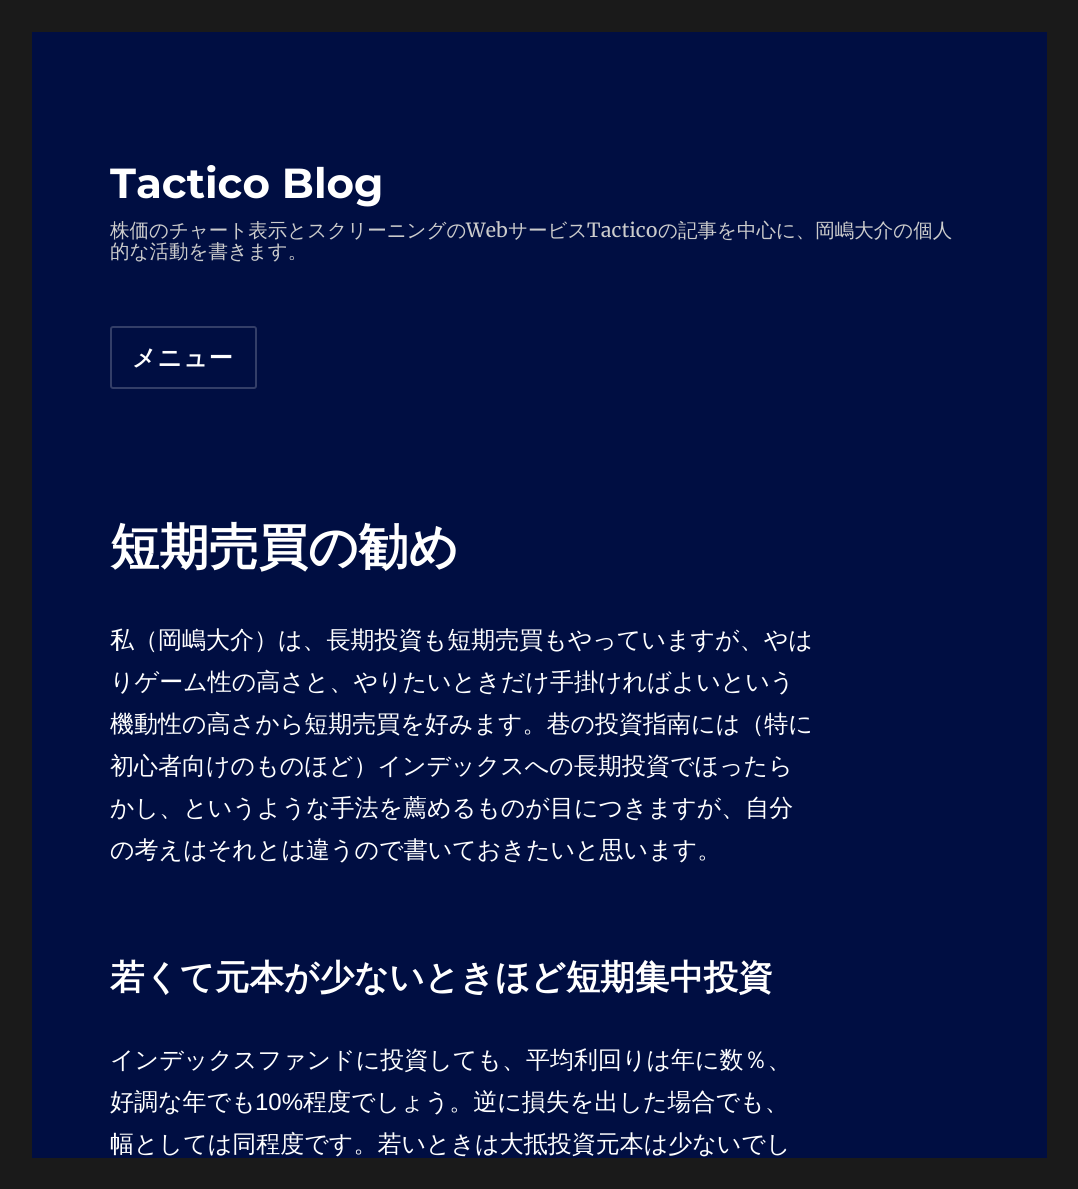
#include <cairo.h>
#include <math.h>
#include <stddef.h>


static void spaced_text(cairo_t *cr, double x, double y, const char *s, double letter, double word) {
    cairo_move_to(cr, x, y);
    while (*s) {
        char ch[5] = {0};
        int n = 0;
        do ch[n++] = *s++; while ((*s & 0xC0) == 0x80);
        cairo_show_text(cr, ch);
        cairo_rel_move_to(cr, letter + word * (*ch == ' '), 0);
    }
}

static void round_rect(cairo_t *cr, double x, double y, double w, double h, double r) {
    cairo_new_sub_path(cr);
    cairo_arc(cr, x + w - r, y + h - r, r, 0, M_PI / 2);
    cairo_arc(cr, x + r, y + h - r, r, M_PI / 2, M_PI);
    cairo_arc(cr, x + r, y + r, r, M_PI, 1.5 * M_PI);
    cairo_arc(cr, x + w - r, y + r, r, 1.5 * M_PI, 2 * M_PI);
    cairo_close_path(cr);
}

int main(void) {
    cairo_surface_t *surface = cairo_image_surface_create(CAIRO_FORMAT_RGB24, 1078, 1189);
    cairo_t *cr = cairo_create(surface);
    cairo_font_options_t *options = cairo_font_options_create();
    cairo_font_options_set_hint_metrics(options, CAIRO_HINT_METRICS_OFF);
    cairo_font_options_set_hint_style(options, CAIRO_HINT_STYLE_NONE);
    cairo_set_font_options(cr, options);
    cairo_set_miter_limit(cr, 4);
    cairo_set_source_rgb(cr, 0.102, 0.102, 0.102);
    cairo_paint(cr);
    cairo_set_source_rgb(cr, 0, 0.055, 0.259);
    cairo_rectangle(cr, 32, 32, 1015, 1126);
    cairo_fill(cr);
    cairo_save(cr);
    cairo_rectangle(cr, 110, 158, 859, 105);
    cairo_clip(cr);
    cairo_select_font_face(cr, "Montserrat Thin", CAIRO_FONT_SLANT_NORMAL, CAIRO_FONT_WEIGHT_NORMAL);
    cairo_set_font_size(cr, 42);
    cairo_set_source_rgb(cr, 1, 1, 1);
    cairo_move_to(cr, 110, 198);
    cairo_show_text(cr, "Tactico Blog");
    cairo_restore(cr);
    cairo_select_font_face(cr, "WenQuanYi Zen Hei Medium", CAIRO_FONT_SLANT_NORMAL, CAIRO_FONT_WEIGHT_NORMAL);
    cairo_set_font_size(cr, 19.5);
    cairo_set_source_rgb(cr, 0.8, 0.8, 0.8);
    cairo_move_to(cr, 110, 237);
    cairo_show_text(cr, "株価のチャート表示とスクリーニングの");
    cairo_select_font_face(cr, "Merriweather", CAIRO_FONT_SLANT_NORMAL, CAIRO_FONT_WEIGHT_NORMAL);
    cairo_move_to(cr, 466, 237);
    cairo_show_text(cr, "Web");
    cairo_select_font_face(cr, "WenQuanYi Zen Hei Medium", CAIRO_FONT_SLANT_NORMAL, CAIRO_FONT_WEIGHT_NORMAL);
    cairo_move_to(cr, 508, 237);
    cairo_show_text(cr, "サービス");
    cairo_select_font_face(cr, "Merriweather", CAIRO_FONT_SLANT_NORMAL, CAIRO_FONT_WEIGHT_NORMAL);
    cairo_move_to(cr, 587, 237);
    cairo_show_text(cr, "Tactico");
    cairo_select_font_face(cr, "WenQuanYi Zen Hei Medium", CAIRO_FONT_SLANT_NORMAL, CAIRO_FONT_WEIGHT_NORMAL);
    cairo_move_to(cr, 658, 237);
    cairo_show_text(cr, "の記事を中心に、岡嶋大介の個人");
    cairo_move_to(cr, 110, 258);
    cairo_show_text(cr, "的な活動を書きます。");
    round_rect(cr, 111, 327, 145, 61, 2);
    cairo_set_source_rgb(cr, 0.2, 0.243, 0.408);
    cairo_stroke(cr);
    cairo_select_font_face(cr, "WenQuanYi Zen Hei", CAIRO_FONT_SLANT_NORMAL, CAIRO_FONT_WEIGHT_BOLD);
    cairo_set_font_size(cr, 24);
    cairo_set_source_rgb(cr, 1, 1, 1);
    spaced_text(cr, 132, 366, "メニュー", 1, 0);
    cairo_set_font_size(cr, 49.5);
    cairo_move_to(cr, 110, 564);
    cairo_show_text(cr, "短期売買の勧め");
    cairo_select_font_face(cr, "WenQuanYi Zen Hei Medium", CAIRO_FONT_SLANT_NORMAL, CAIRO_FONT_WEIGHT_NORMAL);
    cairo_set_font_size(cr, 24);
    cairo_move_to(cr, 110, 648);
    cairo_show_text(cr, "私（岡嶋大介）は、長期投資も短期売買もやっていますが、やは");
    cairo_move_to(cr, 110, 690);
    cairo_show_text(cr, "りゲーム性の高さと、やりたいときだけ手掛ければよいという");
    cairo_move_to(cr, 110, 732);
    cairo_show_text(cr, "機動性の高さから短期売買を好みます。巷の投資指南には（特に");
    cairo_move_to(cr, 110, 774);
    cairo_show_text(cr, "初心者向けのものほど）インデックスへの長期投資でほったら");
    cairo_move_to(cr, 110, 816);
    cairo_show_text(cr, "かし、というような手法を薦めるものが目につきますが、自分");
    cairo_move_to(cr, 110, 858);
    cairo_show_text(cr, "の考えはそれとは違うので書いておきたいと思います。");
    cairo_select_font_face(cr, "WenQuanYi Zen Hei", CAIRO_FONT_SLANT_NORMAL, CAIRO_FONT_WEIGHT_BOLD);
    cairo_set_font_size(cr, 34.5);
    cairo_move_to(cr, 110, 989);
    cairo_show_text(cr, "若くて元本が少ないときほど短期集中投資");
    cairo_select_font_face(cr, "WenQuanYi Zen Hei Medium", CAIRO_FONT_SLANT_NORMAL, CAIRO_FONT_WEIGHT_NORMAL);
    cairo_set_font_size(cr, 24);
    cairo_move_to(cr, 110, 1068);
    cairo_show_text(cr, "インデックスファンドに投資しても、平均利回りは年に数％、");
    cairo_move_to(cr, 110, 1110);
    cairo_show_text(cr, "好調な年でも");
    cairo_select_font_face(cr, "Liberation Sans", CAIRO_FONT_SLANT_NORMAL, CAIRO_FONT_WEIGHT_NORMAL);
    cairo_move_to(cr, 255, 1110);
    cairo_show_text(cr, "10%");
    cairo_select_font_face(cr, "WenQuanYi Zen Hei Medium", CAIRO_FONT_SLANT_NORMAL, CAIRO_FONT_WEIGHT_NORMAL);
    cairo_move_to(cr, 303, 1110);
    cairo_show_text(cr, "程度でしょう。逆に損失を出した場合でも、");
    cairo_move_to(cr, 110, 1152);
    cairo_show_text(cr, "幅としては同程度です。若いときは大抵投資元本は少ないでし");
    cairo_surface_write_to_png(surface, "page.png");
    cairo_font_options_destroy(options);
    cairo_destroy(cr);
    cairo_surface_destroy(surface);
    return 0;
}
